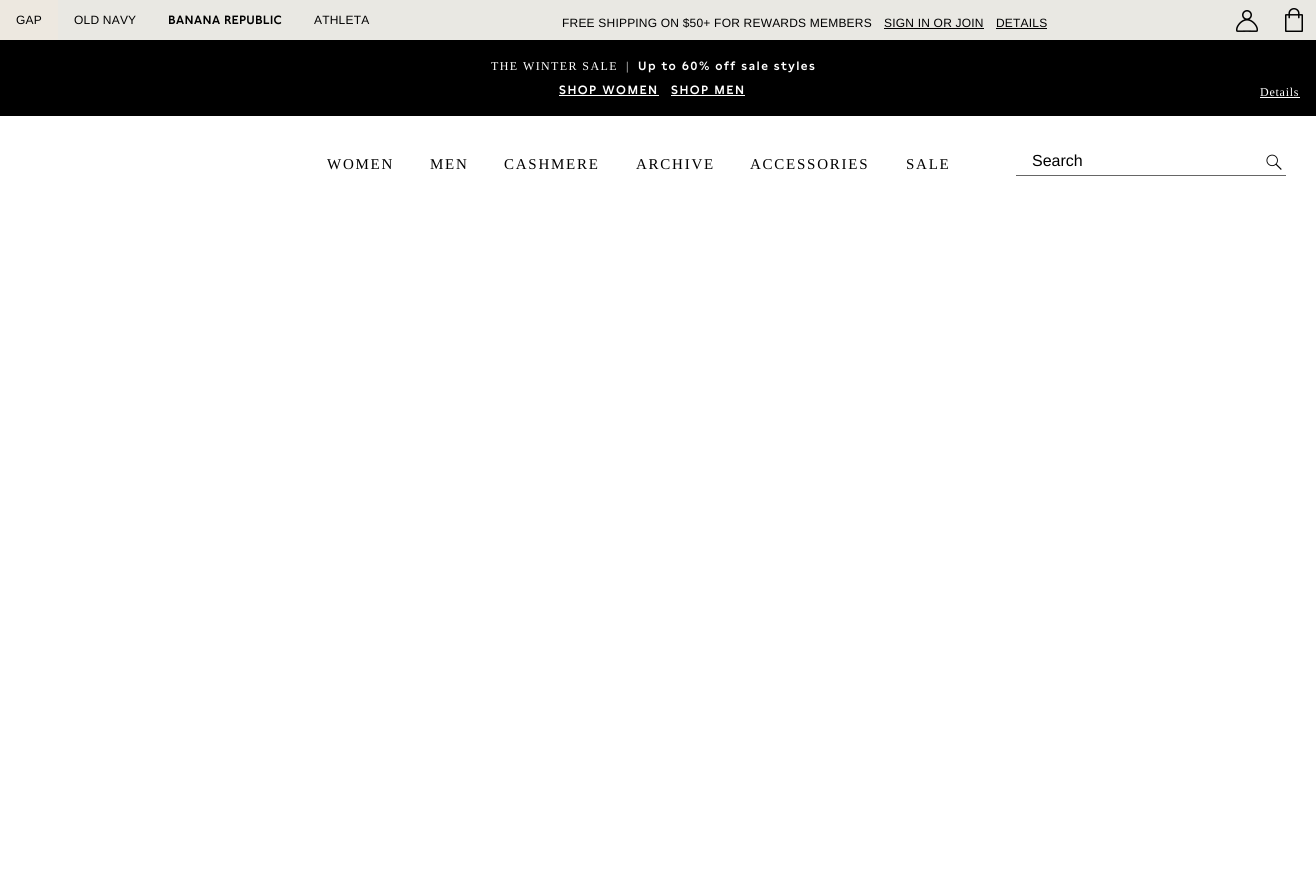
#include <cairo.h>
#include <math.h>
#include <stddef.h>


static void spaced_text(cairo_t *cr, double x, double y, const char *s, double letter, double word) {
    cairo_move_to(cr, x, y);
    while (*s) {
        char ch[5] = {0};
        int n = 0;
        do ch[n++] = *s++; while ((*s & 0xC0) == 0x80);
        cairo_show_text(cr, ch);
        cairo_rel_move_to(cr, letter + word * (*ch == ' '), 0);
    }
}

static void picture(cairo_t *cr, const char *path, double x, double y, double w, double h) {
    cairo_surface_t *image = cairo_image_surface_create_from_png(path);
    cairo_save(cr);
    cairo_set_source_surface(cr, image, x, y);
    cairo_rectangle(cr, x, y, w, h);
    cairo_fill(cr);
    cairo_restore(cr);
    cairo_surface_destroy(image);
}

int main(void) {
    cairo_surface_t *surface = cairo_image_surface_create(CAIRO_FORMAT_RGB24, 1316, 869);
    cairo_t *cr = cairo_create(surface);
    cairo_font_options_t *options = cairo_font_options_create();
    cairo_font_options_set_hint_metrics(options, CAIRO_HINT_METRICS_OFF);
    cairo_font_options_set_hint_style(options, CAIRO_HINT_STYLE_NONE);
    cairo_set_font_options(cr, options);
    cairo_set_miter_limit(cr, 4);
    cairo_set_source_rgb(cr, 1, 1, 1);
    cairo_paint(cr);
    cairo_set_source_rgb(cr, 0.914, 0.91, 0.89);
    cairo_rectangle(cr, 58, 0, 1258, 40);
    cairo_fill(cr);
    cairo_set_source_rgb(cr, 0.929, 0.91, 0.878);
    cairo_rectangle(cr, 0, 0, 58, 40);
    cairo_fill(cr);
    cairo_select_font_face(cr, "Liberation Sans", CAIRO_FONT_SLANT_NORMAL, CAIRO_FONT_WEIGHT_NORMAL);
    cairo_set_font_size(cr, 12);
    cairo_set_source_rgb(cr, 0, 0, 0);
    spaced_text(cr, 16, 24, "GAP", 0.2, 0);
    spaced_text(cr, 74, 24, "OLD NAVY", 0.2, 0);
    cairo_select_font_face(cr, "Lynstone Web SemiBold", CAIRO_FONT_SLANT_NORMAL, CAIRO_FONT_WEIGHT_NORMAL);
    spaced_text(cr, 168, 24, "BANANA REPUBLIC", 0.2, 0);
    cairo_select_font_face(cr, "Liberation Sans", CAIRO_FONT_SLANT_NORMAL, CAIRO_FONT_WEIGHT_NORMAL);
    spaced_text(cr, 314, 24, "ATHLETA", 0.2, 0);
    spaced_text(cr, 562, 27, "FREE SHIPPING ON $50+ FOR REWARDS MEMBERS", 0.2, 0);
    spaced_text(cr, 884, 27, "SIGN IN OR JOIN", 0.2, 0);
    cairo_rectangle(cr, 884, 28, 100, 1);
    cairo_fill(cr);
    spaced_text(cr, 996, 27, "DETAILS", 0.2, 0);
    cairo_rectangle(cr, 996, 28, 51, 1);
    cairo_fill(cr);
    picture(cr, "img1.png", 1236, 10, 22, 22);
    picture(cr, "img2.png", 1285, 8, 18, 24);
    cairo_rectangle(cr, 0, 40, 1316, 76);
    cairo_fill(cr);
    cairo_select_font_face(cr, "Liberation Serif", CAIRO_FONT_SLANT_NORMAL, CAIRO_FONT_WEIGHT_NORMAL);
    cairo_set_source_rgb(cr, 1, 1, 1);
    spaced_text(cr, 491, 70, "THE WINTER SALE", 1.4, 0);
    spaced_text(cr, 626, 70, "|", 1.4, 0);
    cairo_select_font_face(cr, "Lynstone Web SemiBold", CAIRO_FONT_SLANT_NORMAL, CAIRO_FONT_WEIGHT_NORMAL);
    spaced_text(cr, 638, 70, "Up to 60% off sale styles", 1.4, 0);
    spaced_text(cr, 559, 94, "SHOP WOMEN", 1.4, 0);
    cairo_rectangle(cr, 559, 95, 100, 1);
    cairo_fill(cr);
    spaced_text(cr, 671, 94, "SHOP MEN", 1.4, 0);
    cairo_rectangle(cr, 671, 95, 74, 1);
    cairo_fill(cr);
    cairo_select_font_face(cr, "Liberation Serif", CAIRO_FONT_SLANT_NORMAL, CAIRO_FONT_WEIGHT_NORMAL);
    spaced_text(cr, 1260, 96, "Details", 0.75, 0);
    cairo_rectangle(cr, 1260, 97, 40, 1);
    cairo_fill(cr);
    cairo_set_font_size(cr, 15);
    cairo_set_source_rgb(cr, 0, 0, 0);
    spaced_text(cr, 327, 169, "WOMEN", 1.75, 0);
    spaced_text(cr, 430, 169, "MEN", 1.75, 0);
    spaced_text(cr, 504, 169, "CASHMERE", 1.75, 0);
    spaced_text(cr, 636, 169, "ARCHIVE", 1.75, 0);
    spaced_text(cr, 750, 169, "ACCESSORIES", 1.75, 0);
    spaced_text(cr, 906, 169, "SALE", 1.75, 0);
    cairo_set_source_rgb(cr, 0.4, 0.4, 0.4);
    cairo_rectangle(cr, 1016, 175, 270, 1);
    cairo_fill(cr);
    cairo_select_font_face(cr, "Liberation Sans", CAIRO_FONT_SLANT_NORMAL, CAIRO_FONT_WEIGHT_NORMAL);
    cairo_set_font_size(cr, 16);
    cairo_set_source_rgb(cr, 0, 0, 0);
    cairo_move_to(cr, 1032, 166);
    cairo_show_text(cr, "Search");
    picture(cr, "img3.png", 1266, 154, 16, 16);
    cairo_surface_write_to_png(surface, "page.png");
    cairo_font_options_destroy(options);
    cairo_destroy(cr);
    cairo_surface_destroy(surface);
    return 0;
}
